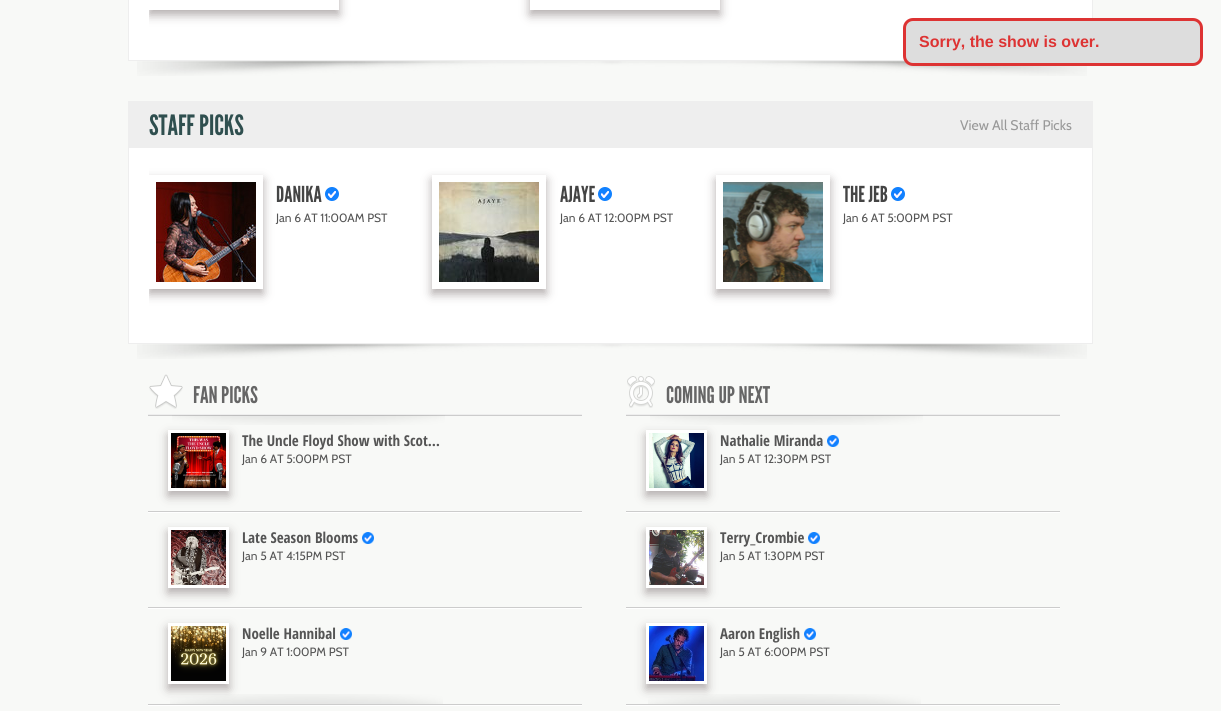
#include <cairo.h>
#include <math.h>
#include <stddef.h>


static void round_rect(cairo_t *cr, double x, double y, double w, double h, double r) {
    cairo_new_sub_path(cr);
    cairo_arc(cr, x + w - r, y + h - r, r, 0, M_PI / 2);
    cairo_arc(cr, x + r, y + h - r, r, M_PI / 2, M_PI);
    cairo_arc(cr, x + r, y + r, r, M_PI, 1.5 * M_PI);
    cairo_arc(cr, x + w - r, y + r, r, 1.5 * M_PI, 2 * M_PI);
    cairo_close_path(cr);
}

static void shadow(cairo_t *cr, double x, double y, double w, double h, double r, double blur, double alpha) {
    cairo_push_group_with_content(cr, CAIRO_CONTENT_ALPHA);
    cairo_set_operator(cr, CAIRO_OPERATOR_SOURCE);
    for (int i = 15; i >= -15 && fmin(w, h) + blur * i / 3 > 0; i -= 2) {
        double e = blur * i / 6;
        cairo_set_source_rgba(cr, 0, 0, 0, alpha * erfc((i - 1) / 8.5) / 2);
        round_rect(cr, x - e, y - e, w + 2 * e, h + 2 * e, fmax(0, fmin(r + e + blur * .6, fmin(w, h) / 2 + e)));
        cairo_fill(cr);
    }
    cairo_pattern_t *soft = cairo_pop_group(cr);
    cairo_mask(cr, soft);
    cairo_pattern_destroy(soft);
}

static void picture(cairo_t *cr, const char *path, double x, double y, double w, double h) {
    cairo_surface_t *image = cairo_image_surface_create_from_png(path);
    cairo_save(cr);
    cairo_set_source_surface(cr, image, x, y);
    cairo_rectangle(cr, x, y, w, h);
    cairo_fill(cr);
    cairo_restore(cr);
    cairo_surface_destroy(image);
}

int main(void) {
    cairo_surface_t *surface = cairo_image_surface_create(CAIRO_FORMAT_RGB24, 1221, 711);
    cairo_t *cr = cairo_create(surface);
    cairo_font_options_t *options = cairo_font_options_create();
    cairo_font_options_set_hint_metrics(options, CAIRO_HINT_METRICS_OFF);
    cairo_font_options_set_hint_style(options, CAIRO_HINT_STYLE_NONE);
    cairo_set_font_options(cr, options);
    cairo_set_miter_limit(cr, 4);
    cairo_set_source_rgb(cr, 0.969, 0.973, 0.965);
    cairo_paint(cr);
    cairo_set_source_rgb(cr, 1, 1, 1);
    cairo_rectangle(cr, 129, 0, 963, 60);
    cairo_fill(cr);
    cairo_set_source_rgb(cr, 0.933, 0.933, 0.933);
    cairo_rectangle(cr, 128, 60, 777, 1);
    cairo_fill(cr);
    picture(cr, "img1.png", 137, 61, 950, 15);
    cairo_set_source_rgb(cr, 0.867, 0.867, 0.867);
    round_rect(cr, 904.5, 19.5, 297, 45, 8.5);
    cairo_fill_preserve(cr);
    cairo_set_source_rgb(cr, 0.867, 0.2, 0.2);
    cairo_set_line_width(cr, 3);
    cairo_stroke(cr);
    cairo_select_font_face(cr, "Liberation Sans", CAIRO_FONT_SLANT_NORMAL, CAIRO_FONT_WEIGHT_BOLD);
    cairo_set_font_size(cr, 16);
    cairo_move_to(cr, 919, 47);
    cairo_show_text(cr, "Sorry, the show is over.");
    cairo_set_source_rgb(cr, 0.933, 0.933, 0.933);
    cairo_rectangle(cr, 1092, 0, 1, 18);
    cairo_fill(cr);
    cairo_rectangle(cr, 128, 0, 1, 61);
    cairo_fill(cr);
    cairo_save(cr);
    cairo_rectangle(cr, 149, 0, 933, 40);
    cairo_clip(cr);
    cairo_set_fill_rule(cr, CAIRO_FILL_RULE_EVEN_ODD);
    cairo_new_path(cr);
    cairo_move_to(cr, 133, 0);
    cairo_line_to(cr, 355, 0);
    cairo_line_to(cr, 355, 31);
    cairo_line_to(cr, 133, 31);
    cairo_close_path(cr);
    cairo_move_to(cr, 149, -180);
    cairo_line_to(cr, 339, -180);
    cairo_line_to(cr, 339, 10);
    cairo_line_to(cr, 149, 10);
    cairo_close_path(cr);
    cairo_clip(cr);
    cairo_set_source_rgb(cr, 0.702, 0.678, 0.678);
    shadow(cr, 149, -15, 190, 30, 0, 5, 1);
    cairo_restore(cr);
    cairo_save(cr);
    cairo_set_fill_rule(cr, CAIRO_FILL_RULE_EVEN_ODD);
    cairo_new_path(cr);
    cairo_move_to(cr, 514, 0);
    cairo_line_to(cr, 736, 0);
    cairo_line_to(cr, 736, 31);
    cairo_line_to(cr, 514, 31);
    cairo_close_path(cr);
    cairo_move_to(cr, 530, -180);
    cairo_line_to(cr, 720, -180);
    cairo_line_to(cr, 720, 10);
    cairo_line_to(cr, 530, 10);
    cairo_close_path(cr);
    cairo_clip(cr);
    cairo_set_source_rgb(cr, 0.702, 0.678, 0.678);
    shadow(cr, 530, -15, 190, 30, 0, 5, 1);
    cairo_restore(cr);
    cairo_rectangle(cr, 128, 101, 965, 47);
    cairo_fill(cr);
    cairo_select_font_face(cr, "League Gothic", CAIRO_FONT_SLANT_NORMAL, CAIRO_FONT_WEIGHT_NORMAL);
    cairo_set_font_size(cr, 28);
    cairo_set_source_rgb(cr, 0.184, 0.31, 0.31);
    cairo_move_to(cr, 149, 135);
    cairo_show_text(cr, "STAFF PICKS");
    cairo_select_font_face(cr, "Cabin", CAIRO_FONT_SLANT_NORMAL, CAIRO_FONT_WEIGHT_NORMAL);
    cairo_set_font_size(cr, 14);
    cairo_set_source_rgb(cr, 0.6, 0.6, 0.6);
    cairo_move_to(cr, 960, 130);
    cairo_show_text(cr, "View All Staff Picks");
    cairo_set_source_rgb(cr, 1, 1, 1);
    cairo_rectangle(cr, 129, 148, 963, 195);
    cairo_fill(cr);
    cairo_set_source_rgb(cr, 0.933, 0.933, 0.933);
    cairo_rectangle(cr, 1092, 148, 1, 196);
    cairo_fill(cr);
    cairo_rectangle(cr, 128, 343, 965, 1);
    cairo_fill(cr);
    cairo_rectangle(cr, 128, 148, 1, 196);
    cairo_fill(cr);
    cairo_save(cr);
    cairo_rectangle(cr, 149, 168, 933, 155);
    cairo_clip(cr);
    cairo_set_fill_rule(cr, CAIRO_FILL_RULE_EVEN_ODD);
    cairo_new_path(cr);
    cairo_move_to(cr, 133, 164);
    cairo_line_to(cr, 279, 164);
    cairo_line_to(cr, 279, 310);
    cairo_line_to(cr, 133, 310);
    cairo_close_path(cr);
    cairo_move_to(cr, 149, 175);
    cairo_line_to(cr, 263, 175);
    cairo_line_to(cr, 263, 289);
    cairo_line_to(cr, 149, 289);
    cairo_close_path(cr);
    cairo_clip(cr);
    cairo_set_source_rgb(cr, 0.702, 0.678, 0.678);
    shadow(cr, 149, 180, 114, 114, 0, 5, 1);
    cairo_restore(cr);
    picture(cr, "img2.png", 156, 182, 100, 100);
    cairo_select_font_face(cr, "League Gothic", CAIRO_FONT_SLANT_NORMAL, CAIRO_FONT_WEIGHT_NORMAL);
    cairo_set_font_size(cr, 22);
    cairo_set_source_rgb(cr, 0.267, 0.267, 0.267);
    cairo_move_to(cr, 276, 202);
    cairo_show_text(cr, "DANIKA");
    picture(cr, "img3.png", 325, 187, 14, 14);
    cairo_select_font_face(cr, "Cabin", CAIRO_FONT_SLANT_NORMAL, CAIRO_FONT_WEIGHT_NORMAL);
    cairo_set_font_size(cr, 12);
    cairo_set_source_rgb(cr, 0.333, 0.333, 0.333);
    cairo_move_to(cr, 276, 222);
    cairo_show_text(cr, "Jan 6 AT 11:00AM PST");
    cairo_save(cr);
    cairo_set_fill_rule(cr, CAIRO_FILL_RULE_EVEN_ODD);
    cairo_new_path(cr);
    cairo_move_to(cr, 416, 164);
    cairo_line_to(cr, 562, 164);
    cairo_line_to(cr, 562, 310);
    cairo_line_to(cr, 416, 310);
    cairo_close_path(cr);
    cairo_move_to(cr, 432, 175);
    cairo_line_to(cr, 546, 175);
    cairo_line_to(cr, 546, 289);
    cairo_line_to(cr, 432, 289);
    cairo_close_path(cr);
    cairo_clip(cr);
    cairo_set_source_rgb(cr, 0.702, 0.678, 0.678);
    shadow(cr, 432, 180, 114, 114, 0, 5, 1);
    cairo_restore(cr);
    picture(cr, "img4.png", 439, 182, 100, 100);
    cairo_select_font_face(cr, "League Gothic", CAIRO_FONT_SLANT_NORMAL, CAIRO_FONT_WEIGHT_NORMAL);
    cairo_set_font_size(cr, 22);
    cairo_set_source_rgb(cr, 0.267, 0.267, 0.267);
    cairo_move_to(cr, 560, 202);
    cairo_show_text(cr, "AJAYE");
    picture(cr, "img3.png", 598, 187, 14, 14);
    cairo_select_font_face(cr, "Cabin", CAIRO_FONT_SLANT_NORMAL, CAIRO_FONT_WEIGHT_NORMAL);
    cairo_set_font_size(cr, 12);
    cairo_set_source_rgb(cr, 0.333, 0.333, 0.333);
    cairo_move_to(cr, 560, 222);
    cairo_show_text(cr, "Jan 6 AT 12:00PM PST");
    cairo_save(cr);
    cairo_set_fill_rule(cr, CAIRO_FILL_RULE_EVEN_ODD);
    cairo_new_path(cr);
    cairo_move_to(cr, 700, 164);
    cairo_line_to(cr, 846, 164);
    cairo_line_to(cr, 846, 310);
    cairo_line_to(cr, 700, 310);
    cairo_close_path(cr);
    cairo_move_to(cr, 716, 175);
    cairo_line_to(cr, 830, 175);
    cairo_line_to(cr, 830, 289);
    cairo_line_to(cr, 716, 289);
    cairo_close_path(cr);
    cairo_clip(cr);
    cairo_set_source_rgb(cr, 0.702, 0.678, 0.678);
    shadow(cr, 716, 180, 114, 114, 0, 5, 1);
    cairo_restore(cr);
    picture(cr, "img5.png", 723, 182, 100, 100);
    cairo_select_font_face(cr, "League Gothic", CAIRO_FONT_SLANT_NORMAL, CAIRO_FONT_WEIGHT_NORMAL);
    cairo_set_font_size(cr, 22);
    cairo_set_source_rgb(cr, 0.267, 0.267, 0.267);
    cairo_move_to(cr, 843, 202);
    cairo_show_text(cr, "THE JEB");
    picture(cr, "img3.png", 891, 187, 14, 14);
    cairo_select_font_face(cr, "Cabin", CAIRO_FONT_SLANT_NORMAL, CAIRO_FONT_WEIGHT_NORMAL);
    cairo_set_font_size(cr, 12);
    cairo_set_source_rgb(cr, 0.333, 0.333, 0.333);
    cairo_move_to(cr, 843, 222);
    cairo_show_text(cr, "Jan 6 AT 5:00PM PST");
    picture(cr, "img1.png", 137, 344, 950, 15);
    cairo_set_source_rgb(cr, 0.8, 0.8, 0.8);
    cairo_rectangle(cr, 148, 415, 434, 1);
    cairo_fill(cr);
    cairo_set_source_rgb(cr, 0.933, 0.933, 0.933);
    cairo_rectangle(cr, 148, 414, 434, 1);
    cairo_fill(cr);
    picture(cr, "img6.png", 149, 374, 34, 35);
    cairo_select_font_face(cr, "League Gothic", CAIRO_FONT_SLANT_NORMAL, CAIRO_FONT_WEIGHT_NORMAL);
    cairo_set_font_size(cr, 23);
    cairo_set_source_rgb(cr, 0.4, 0.4, 0.4);
    cairo_move_to(cr, 193, 403);
    cairo_show_text(cr, "FAN PICKS");
    cairo_set_source_rgb(cr, 1, 1, 1);
    cairo_rectangle(cr, 148, 512, 434, 1);
    cairo_fill(cr);
    picture(cr, "img7.png", 172, 415, 273, 10);
    cairo_set_source_rgb(cr, 0.8, 0.8, 0.8);
    cairo_rectangle(cr, 148, 511, 434, 1);
    cairo_fill(cr);
    cairo_set_source_rgb(cr, 0.702, 0.678, 0.678);
    shadow(cr, 168, 435, 61, 61, 0, 5, 1);
    cairo_set_source_rgb(cr, 1, 1, 1);
    cairo_rectangle(cr, 168, 430, 61, 61);
    cairo_fill(cr);
    picture(cr, "img8.png", 171, 433, 55, 55);
    cairo_select_font_face(cr, "Open Sans Condensed", CAIRO_FONT_SLANT_NORMAL, CAIRO_FONT_WEIGHT_BOLD);
    cairo_set_font_size(cr, 15);
    cairo_set_source_rgb(cr, 0.333, 0.333, 0.333);
    cairo_move_to(cr, 242, 446);
    cairo_show_text(cr, "The Uncle Floyd Show with Scot…");
    cairo_select_font_face(cr, "Cabin", CAIRO_FONT_SLANT_NORMAL, CAIRO_FONT_WEIGHT_NORMAL);
    cairo_set_font_size(cr, 12);
    cairo_move_to(cr, 242, 463);
    cairo_show_text(cr, "Jan 6 AT 5:00PM PST");
    cairo_set_source_rgb(cr, 1, 1, 1);
    cairo_rectangle(cr, 148, 608, 434, 1);
    cairo_fill(cr);
    cairo_set_source_rgb(cr, 0.8, 0.8, 0.8);
    cairo_rectangle(cr, 148, 607, 434, 1);
    cairo_fill(cr);
    cairo_set_source_rgb(cr, 0.702, 0.678, 0.678);
    shadow(cr, 168, 532, 61, 61, 0, 5, 1);
    cairo_set_source_rgb(cr, 1, 1, 1);
    cairo_rectangle(cr, 168, 527, 61, 61);
    cairo_fill(cr);
    picture(cr, "img9.png", 171, 530, 55, 55);
    cairo_select_font_face(cr, "Open Sans Condensed", CAIRO_FONT_SLANT_NORMAL, CAIRO_FONT_WEIGHT_BOLD);
    cairo_set_font_size(cr, 15);
    cairo_set_source_rgb(cr, 0.333, 0.333, 0.333);
    cairo_move_to(cr, 242, 543);
    cairo_show_text(cr, "Late Season Blooms");
    picture(cr, "img10.png", 362, 532, 12, 12);
    cairo_select_font_face(cr, "Cabin", CAIRO_FONT_SLANT_NORMAL, CAIRO_FONT_WEIGHT_NORMAL);
    cairo_set_font_size(cr, 12);
    cairo_move_to(cr, 242, 560);
    cairo_show_text(cr, "Jan 5 AT 4:15PM PST");
    cairo_set_source_rgb(cr, 1, 1, 1);
    cairo_rectangle(cr, 148, 705, 434, 1);
    cairo_fill(cr);
    picture(cr, "img11.png", 170, 694, 273, 10);
    cairo_set_source_rgb(cr, 0.8, 0.8, 0.8);
    cairo_rectangle(cr, 148, 704, 434, 1);
    cairo_fill(cr);
    cairo_set_source_rgb(cr, 0.702, 0.678, 0.678);
    shadow(cr, 168, 628, 61, 61, 0, 5, 1);
    cairo_set_source_rgb(cr, 1, 1, 1);
    cairo_rectangle(cr, 168, 623, 61, 61);
    cairo_fill(cr);
    picture(cr, "img12.png", 171, 626, 55, 55);
    cairo_select_font_face(cr, "Open Sans Condensed", CAIRO_FONT_SLANT_NORMAL, CAIRO_FONT_WEIGHT_BOLD);
    cairo_set_font_size(cr, 15);
    cairo_set_source_rgb(cr, 0.333, 0.333, 0.333);
    cairo_move_to(cr, 242, 639);
    cairo_show_text(cr, "Noelle Hannibal");
    picture(cr, "img10.png", 340, 628, 12, 12);
    cairo_select_font_face(cr, "Cabin", CAIRO_FONT_SLANT_NORMAL, CAIRO_FONT_WEIGHT_NORMAL);
    cairo_set_font_size(cr, 12);
    cairo_move_to(cr, 242, 656);
    cairo_show_text(cr, "Jan 9 AT 1:00PM PST");
    cairo_set_source_rgb(cr, 0.8, 0.8, 0.8);
    cairo_rectangle(cr, 626, 415, 434, 1);
    cairo_fill(cr);
    cairo_set_source_rgb(cr, 0.933, 0.933, 0.933);
    cairo_rectangle(cr, 626, 414, 434, 1);
    cairo_fill(cr);
    picture(cr, "img13.png", 627, 376, 28, 32);
    cairo_select_font_face(cr, "League Gothic", CAIRO_FONT_SLANT_NORMAL, CAIRO_FONT_WEIGHT_NORMAL);
    cairo_set_font_size(cr, 23);
    cairo_set_source_rgb(cr, 0.4, 0.4, 0.4);
    cairo_move_to(cr, 666, 403);
    cairo_show_text(cr, "COMING UP NEXT");
    cairo_set_source_rgb(cr, 1, 1, 1);
    cairo_rectangle(cr, 626, 512, 434, 1);
    cairo_fill(cr);
    picture(cr, "img7.png", 650, 415, 273, 10);
    cairo_set_source_rgb(cr, 0.8, 0.8, 0.8);
    cairo_rectangle(cr, 626, 511, 434, 1);
    cairo_fill(cr);
    cairo_set_source_rgb(cr, 0.702, 0.678, 0.678);
    shadow(cr, 646, 435, 61, 61, 0, 5, 1);
    cairo_set_source_rgb(cr, 1, 1, 1);
    cairo_rectangle(cr, 646, 430, 61, 61);
    cairo_fill(cr);
    picture(cr, "img14.png", 649, 433, 55, 55);
    cairo_select_font_face(cr, "Open Sans Condensed", CAIRO_FONT_SLANT_NORMAL, CAIRO_FONT_WEIGHT_BOLD);
    cairo_set_font_size(cr, 15);
    cairo_set_source_rgb(cr, 0.333, 0.333, 0.333);
    cairo_move_to(cr, 720, 446);
    cairo_show_text(cr, "Nathalie Miranda");
    picture(cr, "img10.png", 827, 435, 12, 12);
    cairo_select_font_face(cr, "Cabin", CAIRO_FONT_SLANT_NORMAL, CAIRO_FONT_WEIGHT_NORMAL);
    cairo_set_font_size(cr, 12);
    cairo_move_to(cr, 720, 463);
    cairo_show_text(cr, "Jan 5 AT 12:30PM PST");
    cairo_set_source_rgb(cr, 1, 1, 1);
    cairo_rectangle(cr, 626, 608, 434, 1);
    cairo_fill(cr);
    cairo_set_source_rgb(cr, 0.8, 0.8, 0.8);
    cairo_rectangle(cr, 626, 607, 434, 1);
    cairo_fill(cr);
    cairo_set_source_rgb(cr, 0.702, 0.678, 0.678);
    shadow(cr, 646, 532, 61, 61, 0, 5, 1);
    cairo_set_source_rgb(cr, 1, 1, 1);
    cairo_rectangle(cr, 646, 527, 61, 61);
    cairo_fill(cr);
    picture(cr, "img15.png", 649, 530, 55, 55);
    cairo_select_font_face(cr, "Open Sans Condensed", CAIRO_FONT_SLANT_NORMAL, CAIRO_FONT_WEIGHT_BOLD);
    cairo_set_font_size(cr, 15);
    cairo_set_source_rgb(cr, 0.333, 0.333, 0.333);
    cairo_move_to(cr, 720, 543);
    cairo_show_text(cr, "Terry_Crombie");
    picture(cr, "img10.png", 808, 532, 12, 12);
    cairo_select_font_face(cr, "Cabin", CAIRO_FONT_SLANT_NORMAL, CAIRO_FONT_WEIGHT_NORMAL);
    cairo_set_font_size(cr, 12);
    cairo_move_to(cr, 720, 560);
    cairo_show_text(cr, "Jan 5 AT 1:30PM PST");
    cairo_set_source_rgb(cr, 1, 1, 1);
    cairo_rectangle(cr, 626, 705, 434, 1);
    cairo_fill(cr);
    picture(cr, "img11.png", 648, 694, 273, 10);
    cairo_set_source_rgb(cr, 0.8, 0.8, 0.8);
    cairo_rectangle(cr, 626, 704, 434, 1);
    cairo_fill(cr);
    cairo_set_source_rgb(cr, 0.702, 0.678, 0.678);
    shadow(cr, 646, 628, 61, 61, 0, 5, 1);
    cairo_set_source_rgb(cr, 1, 1, 1);
    cairo_rectangle(cr, 646, 623, 61, 61);
    cairo_fill(cr);
    picture(cr, "img16.png", 649, 626, 55, 55);
    cairo_select_font_face(cr, "Open Sans Condensed", CAIRO_FONT_SLANT_NORMAL, CAIRO_FONT_WEIGHT_BOLD);
    cairo_set_font_size(cr, 15);
    cairo_set_source_rgb(cr, 0.333, 0.333, 0.333);
    cairo_move_to(cr, 720, 639);
    cairo_show_text(cr, "Aaron English");
    picture(cr, "img17.png", 804, 628, 12, 12);
    cairo_select_font_face(cr, "Cabin", CAIRO_FONT_SLANT_NORMAL, CAIRO_FONT_WEIGHT_NORMAL);
    cairo_set_font_size(cr, 12);
    cairo_move_to(cr, 720, 656);
    cairo_show_text(cr, "Jan 5 AT 6:00PM PST");
    cairo_surface_write_to_png(surface, "page.png");
    cairo_font_options_destroy(options);
    cairo_destroy(cr);
    cairo_surface_destroy(surface);
    return 0;
}
